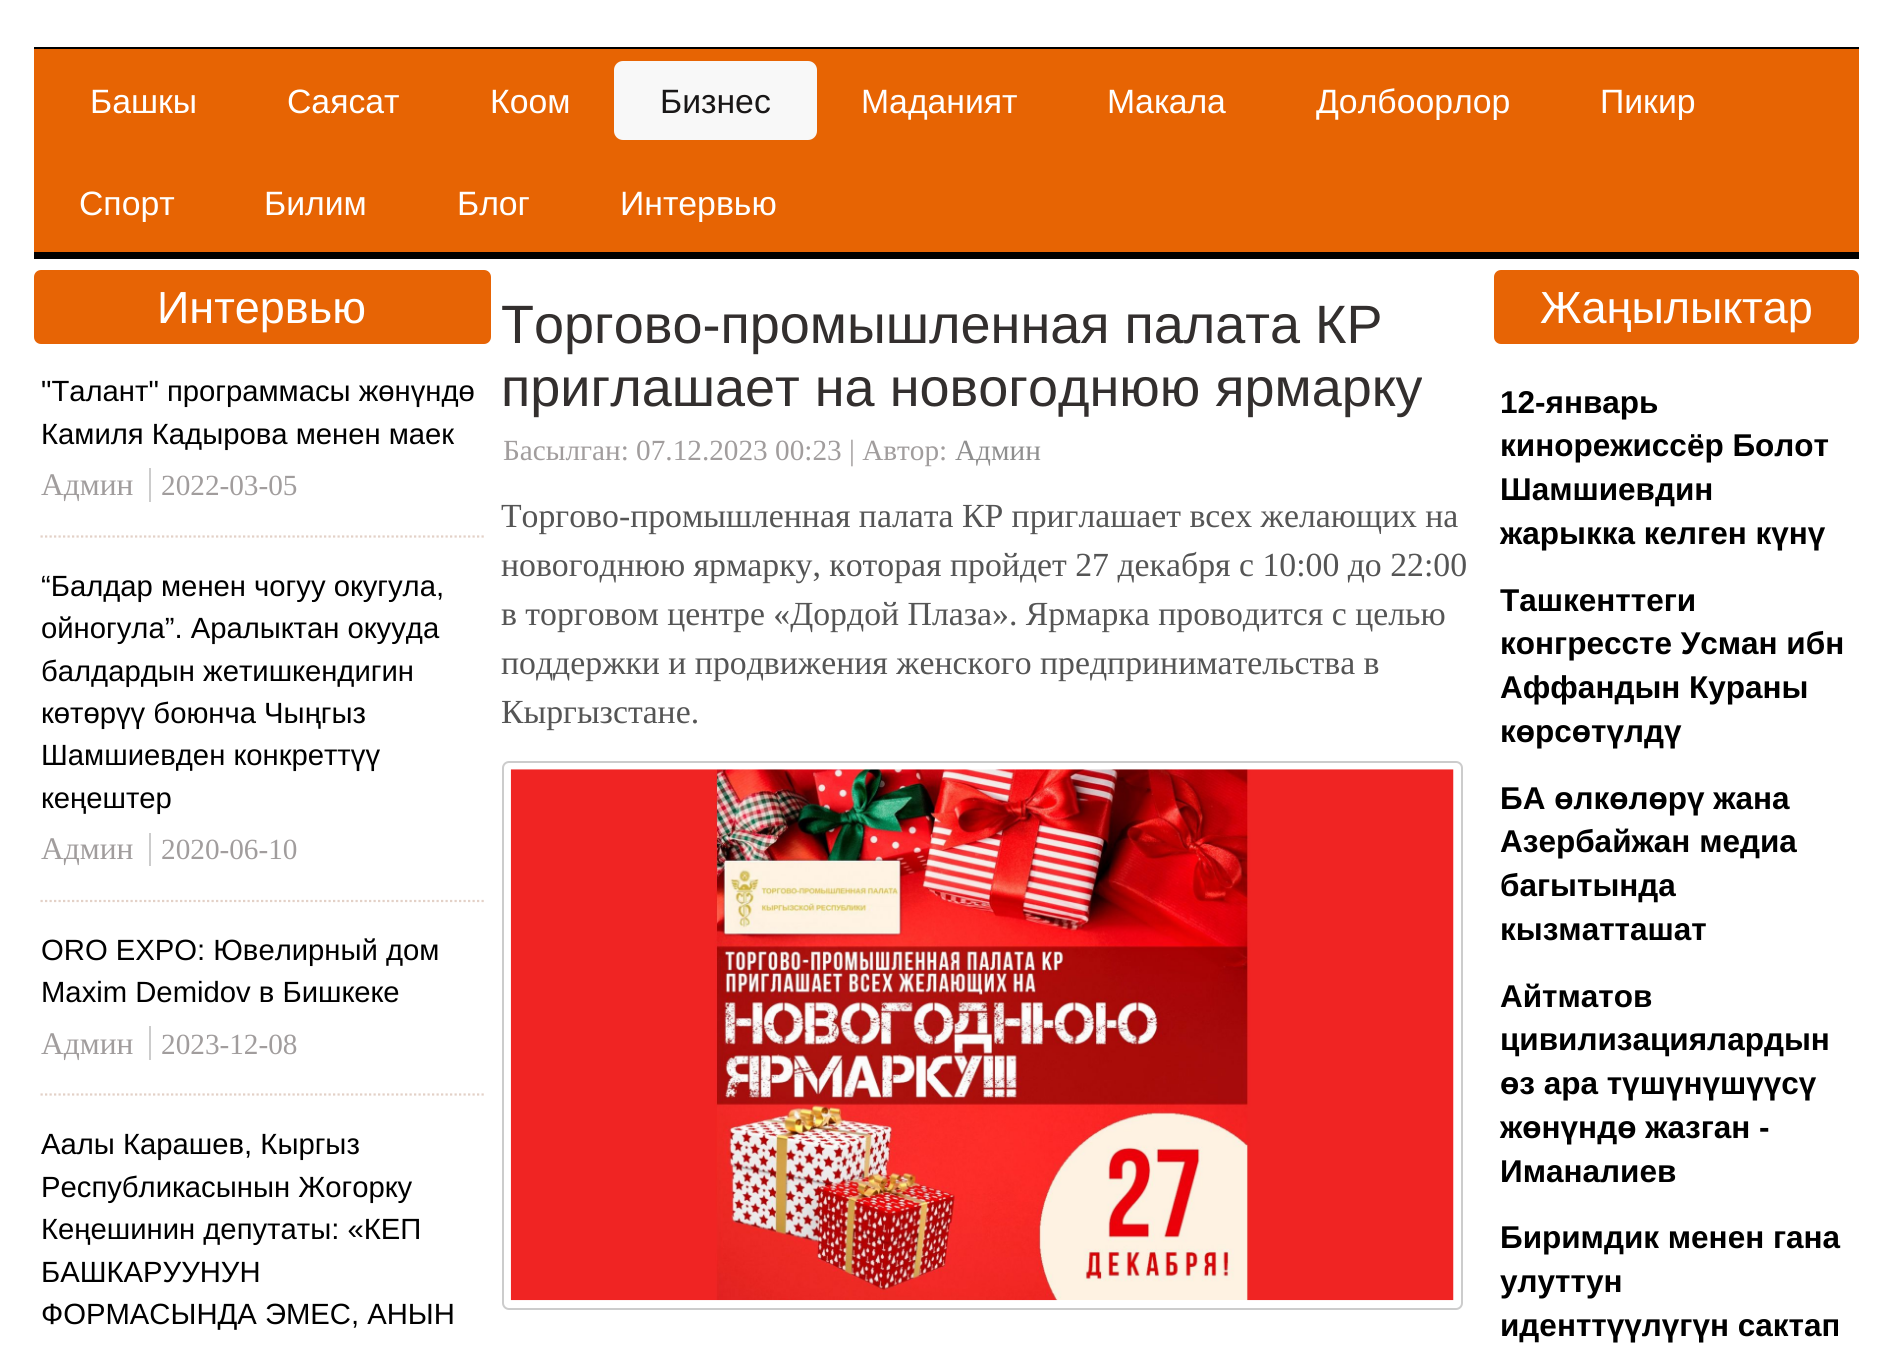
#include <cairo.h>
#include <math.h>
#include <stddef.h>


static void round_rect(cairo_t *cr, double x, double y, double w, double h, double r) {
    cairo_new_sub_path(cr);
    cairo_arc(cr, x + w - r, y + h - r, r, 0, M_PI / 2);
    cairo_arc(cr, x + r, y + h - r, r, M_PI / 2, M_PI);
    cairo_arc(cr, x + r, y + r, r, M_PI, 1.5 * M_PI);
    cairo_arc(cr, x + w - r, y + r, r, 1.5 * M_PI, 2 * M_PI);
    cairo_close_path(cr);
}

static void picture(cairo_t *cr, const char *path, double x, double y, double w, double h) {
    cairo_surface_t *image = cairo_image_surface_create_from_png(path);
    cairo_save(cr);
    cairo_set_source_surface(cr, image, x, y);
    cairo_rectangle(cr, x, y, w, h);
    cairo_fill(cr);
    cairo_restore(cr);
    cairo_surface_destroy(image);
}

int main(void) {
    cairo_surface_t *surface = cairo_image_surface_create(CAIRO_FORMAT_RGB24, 1892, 1347);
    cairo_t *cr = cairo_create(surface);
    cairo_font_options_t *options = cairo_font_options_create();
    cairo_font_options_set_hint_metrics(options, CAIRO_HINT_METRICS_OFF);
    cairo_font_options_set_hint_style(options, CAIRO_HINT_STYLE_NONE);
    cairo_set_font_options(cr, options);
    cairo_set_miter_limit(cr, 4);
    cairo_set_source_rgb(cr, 1, 1, 1);
    cairo_paint(cr);
    cairo_set_source_rgb(cr, 0.906, 0.392, 0.012);
    cairo_rectangle(cr, 34, 49, 1825, 203);
    cairo_fill(cr);
    cairo_set_source_rgb(cr, 0, 0, 0);
    cairo_rectangle(cr, 34, 47, 1825, 2);
    cairo_fill(cr);
    cairo_rectangle(cr, 34, 252, 1825, 7);
    cairo_fill(cr);
    cairo_select_font_face(cr, "Liberation Sans", CAIRO_FONT_SLANT_NORMAL, CAIRO_FONT_WEIGHT_NORMAL);
    cairo_set_font_size(cr, 33.75);
    cairo_set_source_rgb(cr, 1, 1, 1);
    cairo_move_to(cr, 90, 113);
    cairo_show_text(cr, "Башкы");
    cairo_move_to(cr, 287, 113);
    cairo_show_text(cr, "Саясат");
    cairo_move_to(cr, 490, 113);
    cairo_show_text(cr, "Коом");
    cairo_set_source_rgb(cr, 0.969, 0.969, 0.969);
    round_rect(cr, 614, 61, 203, 79, 9);
    cairo_fill(cr);
    cairo_set_source_rgb(cr, 0.098, 0.09, 0.09);
    cairo_move_to(cr, 660, 113);
    cairo_show_text(cr, "Бизнес");
    cairo_set_source_rgb(cr, 1, 1, 1);
    cairo_move_to(cr, 861, 113);
    cairo_show_text(cr, "Маданият");
    cairo_move_to(cr, 1107, 113);
    cairo_show_text(cr, "Макала");
    cairo_move_to(cr, 1316, 113);
    cairo_show_text(cr, "Долбоорлор");
    cairo_move_to(cr, 1600, 113);
    cairo_show_text(cr, "Пикир");
    cairo_move_to(cr, 79, 215);
    cairo_show_text(cr, "Спорт");
    cairo_move_to(cr, 264, 215);
    cairo_show_text(cr, "Билим");
    cairo_move_to(cr, 457, 215);
    cairo_show_text(cr, "Блог");
    cairo_move_to(cr, 620, 215);
    cairo_show_text(cr, "Интервью");
    cairo_set_source_rgb(cr, 0.906, 0.392, 0.02);
    round_rect(cr, 34, 270, 457, 74, 7);
    cairo_fill(cr);
    cairo_set_font_size(cr, 45);
    cairo_set_source_rgb(cr, 1, 1, 1);
    cairo_move_to(cr, 157, 323);
    cairo_show_text(cr, "Интервью");
    cairo_new_path(cr);
    cairo_move_to(cr, 40.5, 536.5);
    cairo_line_to(cr, 484, 536.5);
    cairo_set_source_rgb(cr, 0.89, 0.82, 0.78);
    cairo_set_line_width(cr, 2.2);
    cairo_set_dash(cr, (double[]){2.25, 2.25}, 2, 0);
    cairo_stroke(cr);
    cairo_set_font_size(cr, 29.25);
    cairo_set_source_rgb(cr, 0, 0, 0);
    cairo_move_to(cr, 41, 401);
    cairo_show_text(cr, "\"Талант\" программасы жөнүндө");
    cairo_move_to(cr, 41, 444);
    cairo_show_text(cr, "Камиля Кадырова менен маек");
    cairo_select_font_face(cr, "Liberation Serif", CAIRO_FONT_SLANT_NORMAL, CAIRO_FONT_WEIGHT_NORMAL);
    cairo_set_font_size(cr, 31.5);
    cairo_set_source_rgb(cr, 0.631, 0.616, 0.616);
    cairo_move_to(cr, 41, 495);
    cairo_show_text(cr, "Админ");
    cairo_set_font_size(cr, 29.25);
    cairo_move_to(cr, 161, 495);
    cairo_show_text(cr, "2022-03-05");
    cairo_set_source_rgb(cr, 0.8, 0.8, 0.8);
    cairo_rectangle(cr, 149, 468, 2, 34);
    cairo_fill(cr);
    cairo_new_path(cr);
    cairo_move_to(cr, 40.5, 901);
    cairo_line_to(cr, 484, 901);
    cairo_set_source_rgb(cr, 0.89, 0.82, 0.78);
    cairo_stroke(cr);
    cairo_select_font_face(cr, "Liberation Sans", CAIRO_FONT_SLANT_NORMAL, CAIRO_FONT_WEIGHT_NORMAL);
    cairo_set_source_rgb(cr, 0, 0, 0);
    cairo_move_to(cr, 41, 596);
    cairo_show_text(cr, "“Балдар менен чогуу окугула,");
    cairo_move_to(cr, 41, 638);
    cairo_show_text(cr, "ойногула”. Аралыктан окууда");
    cairo_move_to(cr, 41, 681);
    cairo_show_text(cr, "балдардын жетишкендигин");
    cairo_move_to(cr, 41, 723);
    cairo_show_text(cr, "көтөрүү боюнча Чыңгыз");
    cairo_move_to(cr, 41, 765);
    cairo_show_text(cr, "Шамшиевден конкреттүү");
    cairo_move_to(cr, 41, 808);
    cairo_show_text(cr, "кеңештер");
    cairo_select_font_face(cr, "Liberation Serif", CAIRO_FONT_SLANT_NORMAL, CAIRO_FONT_WEIGHT_NORMAL);
    cairo_set_font_size(cr, 31.5);
    cairo_set_source_rgb(cr, 0.631, 0.616, 0.616);
    cairo_move_to(cr, 41, 859);
    cairo_show_text(cr, "Админ");
    cairo_set_font_size(cr, 29.25);
    cairo_move_to(cr, 161, 859);
    cairo_show_text(cr, "2020-06-10");
    cairo_set_source_rgb(cr, 0.8, 0.8, 0.8);
    cairo_rectangle(cr, 149, 833, 2, 33);
    cairo_fill(cr);
    cairo_new_path(cr);
    cairo_move_to(cr, 40.5, 1094.5);
    cairo_line_to(cr, 484, 1094.5);
    cairo_set_source_rgb(cr, 0.89, 0.82, 0.78);
    cairo_stroke(cr);
    cairo_select_font_face(cr, "Liberation Sans", CAIRO_FONT_SLANT_NORMAL, CAIRO_FONT_WEIGHT_NORMAL);
    cairo_set_source_rgb(cr, 0, 0, 0);
    cairo_move_to(cr, 41, 960);
    cairo_show_text(cr, "ORO EXPO: Ювелирный дом");
    cairo_move_to(cr, 41, 1002);
    cairo_show_text(cr, "Maxim Demidov в Бишкеке");
    cairo_select_font_face(cr, "Liberation Serif", CAIRO_FONT_SLANT_NORMAL, CAIRO_FONT_WEIGHT_NORMAL);
    cairo_set_font_size(cr, 31.5);
    cairo_set_source_rgb(cr, 0.631, 0.616, 0.616);
    cairo_move_to(cr, 41, 1054);
    cairo_show_text(cr, "Админ");
    cairo_set_font_size(cr, 29.25);
    cairo_move_to(cr, 161, 1054);
    cairo_show_text(cr, "2023-12-08");
    cairo_set_source_rgb(cr, 0.8, 0.8, 0.8);
    cairo_rectangle(cr, 149, 1026, 2, 34);
    cairo_fill(cr);
    cairo_select_font_face(cr, "Liberation Sans", CAIRO_FONT_SLANT_NORMAL, CAIRO_FONT_WEIGHT_NORMAL);
    cairo_set_source_rgb(cr, 0, 0, 0);
    cairo_move_to(cr, 41, 1154);
    cairo_show_text(cr, "Аалы Карашев, Кыргыз");
    cairo_move_to(cr, 41, 1197);
    cairo_show_text(cr, "Республикасынын Жогорку");
    cairo_move_to(cr, 41, 1239);
    cairo_show_text(cr, "Кеңешинин депутаты: «КЕП");
    cairo_move_to(cr, 41, 1282);
    cairo_show_text(cr, "БАШКАРУУНУН");
    cairo_move_to(cr, 41, 1324);
    cairo_show_text(cr, "ФОРМАСЫНДА ЭМЕС, АНЫН");
    cairo_set_font_size(cr, 54);
    cairo_set_source_rgb(cr, 0.2, 0.184, 0.18);
    cairo_move_to(cr, 501, 343);
    cairo_show_text(cr, "Торгово-промышленная палата КР");
    cairo_move_to(cr, 501, 406);
    cairo_show_text(cr, "приглашает на новогоднюю ярмарку");
    cairo_select_font_face(cr, "Liberation Serif", CAIRO_FONT_SLANT_NORMAL, CAIRO_FONT_WEIGHT_NORMAL);
    cairo_set_font_size(cr, 29.25);
    cairo_set_source_rgb(cr, 0.631, 0.616, 0.616);
    cairo_move_to(cr, 503, 460);
    cairo_show_text(cr, "Басылган: 07.12.2023 00:23 | Автор:");
    cairo_set_source_rgb(cr, 0.561, 0.561, 0.561);
    cairo_move_to(cr, 955, 460);
    cairo_show_text(cr, "Админ");
    cairo_set_font_size(cr, 33.75);
    cairo_set_source_rgb(cr, 0.333, 0.333, 0.333);
    cairo_move_to(cr, 501, 527);
    cairo_show_text(cr, "Торгово-промышленная палата КР приглашает всех желающих на");
    cairo_move_to(cr, 501, 576);
    cairo_show_text(cr, "новогоднюю ярмарку, которая пройдет 27 декабря с 10:00 до 22:00");
    cairo_move_to(cr, 501, 625);
    cairo_show_text(cr, "в торговом центре «Дордой Плаза». Ярмарка проводится с целью");
    cairo_move_to(cr, 501, 674);
    cairo_show_text(cr, "поддержки и продвижения женского предпринимательства в");
    cairo_move_to(cr, 501, 723);
    cairo_show_text(cr, "Кыргызстане.");
    round_rect(cr, 503, 762, 959, 547, 6);
    cairo_set_source_rgb(cr, 0.8, 0.8, 0.8);
    cairo_set_line_width(cr, 2);
    cairo_set_dash(cr, NULL, 0, 0);
    cairo_stroke(cr);
    picture(cr, "img1.png", 510, 769, 944, 532);
    cairo_set_source_rgb(cr, 0.906, 0.392, 0.02);
    round_rect(cr, 1494, 270, 365, 74, 7);
    cairo_fill(cr);
    cairo_select_font_face(cr, "Liberation Sans", CAIRO_FONT_SLANT_NORMAL, CAIRO_FONT_WEIGHT_NORMAL);
    cairo_set_font_size(cr, 45);
    cairo_set_source_rgb(cr, 1, 1, 1);
    cairo_move_to(cr, 1540, 323);
    cairo_show_text(cr, "Жаңылыктар");
    cairo_select_font_face(cr, "Liberation Sans", CAIRO_FONT_SLANT_NORMAL, CAIRO_FONT_WEIGHT_BOLD);
    cairo_set_font_size(cr, 31.5);
    cairo_set_source_rgb(cr, 0, 0, 0);
    cairo_move_to(cr, 1500, 413);
    cairo_show_text(cr, "12-январь");
    cairo_move_to(cr, 1500, 456);
    cairo_show_text(cr, "кинорежиссёр Болот");
    cairo_move_to(cr, 1500, 500);
    cairo_show_text(cr, "Шамшиевдин");
    cairo_move_to(cr, 1500, 544);
    cairo_show_text(cr, "жарыкка келген күнү");
    cairo_move_to(cr, 1500, 611);
    cairo_show_text(cr, "Ташкенттеги");
    cairo_move_to(cr, 1500, 654);
    cairo_show_text(cr, "конгрессте Усман ибн");
    cairo_move_to(cr, 1500, 698);
    cairo_show_text(cr, "Аффандын Кураны");
    cairo_move_to(cr, 1500, 742);
    cairo_show_text(cr, "көрсөтүлдү");
    cairo_move_to(cr, 1500, 809);
    cairo_show_text(cr, "БА өлкөлөрү жана");
    cairo_move_to(cr, 1500, 852);
    cairo_show_text(cr, "Азербайжан медиа");
    cairo_move_to(cr, 1500, 896);
    cairo_show_text(cr, "багытында");
    cairo_move_to(cr, 1500, 940);
    cairo_show_text(cr, "кызматташат");
    cairo_move_to(cr, 1500, 1007);
    cairo_show_text(cr, "Айтматов");
    cairo_move_to(cr, 1500, 1050);
    cairo_show_text(cr, "цивилизациялардын");
    cairo_move_to(cr, 1500, 1094);
    cairo_show_text(cr, "өз ара түшүнүшүүсү");
    cairo_move_to(cr, 1500, 1138);
    cairo_show_text(cr, "жөнүндө жазган -");
    cairo_move_to(cr, 1500, 1182);
    cairo_show_text(cr, "Иманалиев");
    cairo_move_to(cr, 1500, 1248);
    cairo_show_text(cr, "Биримдик менен гана");
    cairo_move_to(cr, 1500, 1292);
    cairo_show_text(cr, "улуттун");
    cairo_move_to(cr, 1500, 1336);
    cairo_show_text(cr, "иденттүүлүгүн сактап");
    cairo_surface_write_to_png(surface, "page.png");
    cairo_font_options_destroy(options);
    cairo_destroy(cr);
    cairo_surface_destroy(surface);
    return 0;
}
